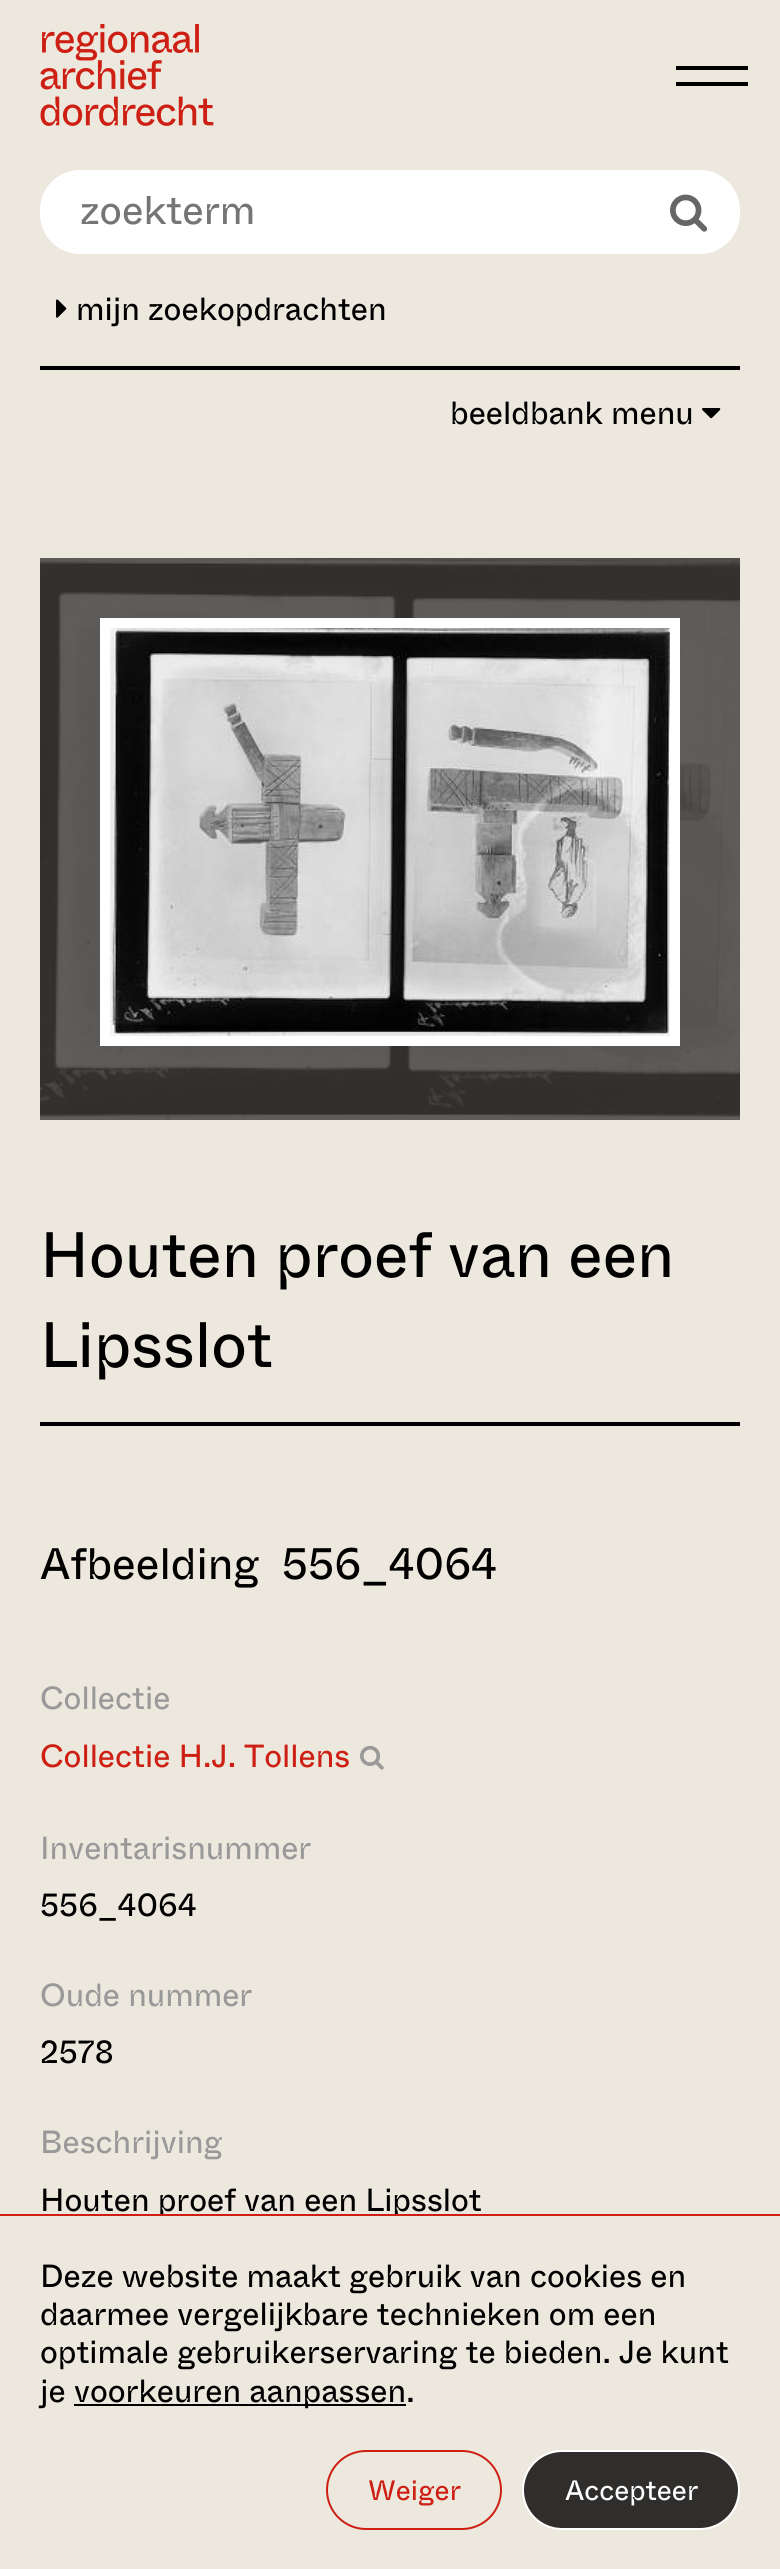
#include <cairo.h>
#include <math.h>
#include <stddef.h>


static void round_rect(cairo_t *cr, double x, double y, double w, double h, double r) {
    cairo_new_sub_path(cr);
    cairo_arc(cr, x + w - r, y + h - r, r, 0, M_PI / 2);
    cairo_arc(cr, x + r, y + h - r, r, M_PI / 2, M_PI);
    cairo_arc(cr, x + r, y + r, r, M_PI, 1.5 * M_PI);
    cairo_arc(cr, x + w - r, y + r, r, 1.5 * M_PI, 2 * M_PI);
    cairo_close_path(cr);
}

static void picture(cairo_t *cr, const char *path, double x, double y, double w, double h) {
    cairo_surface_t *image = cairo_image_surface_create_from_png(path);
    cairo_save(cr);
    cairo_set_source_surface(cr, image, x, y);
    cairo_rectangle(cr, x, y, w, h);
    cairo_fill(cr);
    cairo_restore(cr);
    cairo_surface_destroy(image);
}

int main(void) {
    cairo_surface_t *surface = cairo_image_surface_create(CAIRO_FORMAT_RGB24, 780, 2569);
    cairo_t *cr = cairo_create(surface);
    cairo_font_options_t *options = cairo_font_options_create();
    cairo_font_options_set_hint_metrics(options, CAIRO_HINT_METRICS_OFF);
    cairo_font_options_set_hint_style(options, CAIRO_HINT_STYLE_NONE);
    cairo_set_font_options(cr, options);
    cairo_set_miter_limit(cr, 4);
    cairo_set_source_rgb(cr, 0.929, 0.91, 0.871);
    cairo_paint(cr);
    cairo_set_source_rgb(cr, 0.373, 0.365, 0.349);
    cairo_rectangle(cr, 40, 558, 700, 562);
    cairo_fill(cr);
    picture(cr, "img1.png", 40, 24, 174, 102);
    cairo_set_source_rgb(cr, 0, 0, 0);
    cairo_rectangle(cr, 676, 66, 72, 4);
    cairo_fill(cr);
    cairo_rectangle(cr, 676, 82, 72, 4);
    cairo_fill(cr);
    cairo_set_source_rgb(cr, 1, 1, 1);
    round_rect(cr, 40, 170, 700, 84, 40);
    cairo_fill(cr);
    cairo_select_font_face(cr, "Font", CAIRO_FONT_SLANT_NORMAL, CAIRO_FONT_WEIGHT_NORMAL);
    cairo_set_font_size(cr, 40);
    cairo_set_source_rgb(cr, 0.459, 0.459, 0.459);
    cairo_move_to(cr, 80, 224);
    cairo_show_text(cr, "zoekterm");
    picture(cr, "img2.png", 670, 194, 38, 38);
    picture(cr, "img3.png", 56, 299, 11, 19);
    cairo_set_font_size(cr, 32);
    cairo_set_source_rgb(cr, 0, 0, 0);
    cairo_move_to(cr, 76, 320);
    cairo_show_text(cr, "mijn zoekopdrachten");
    cairo_rectangle(cr, 40, 366, 700, 4);
    cairo_fill(cr);
    cairo_move_to(cr, 450, 424);
    cairo_show_text(cr, "beeldbank menu");
    picture(cr, "img4.png", 702, 408, 19, 11);
    picture(cr, "img5.png", 40, 558, 700, 562);
    cairo_rectangle(cr, 105, 623, 570, 418);
    cairo_set_source_rgb(cr, 1, 1, 1);
    cairo_set_line_width(cr, 10);
    cairo_stroke(cr);
    picture(cr, "img6.png", 110, 628, 560, 408);
    cairo_set_source_rgb(cr, 0, 0, 0);
    cairo_rectangle(cr, 40, 1422, 700, 4);
    cairo_fill(cr);
    cairo_set_font_size(cr, 64);
    cairo_move_to(cr, 40, 1277);
    cairo_show_text(cr, "Houten proef van een");
    cairo_move_to(cr, 40, 1367);
    cairo_show_text(cr, "Lipsslot");
    cairo_set_font_size(cr, 44);
    cairo_move_to(cr, 40, 1579);
    cairo_show_text(cr, "Afbeelding  556_4064");
    cairo_set_font_size(cr, 32);
    cairo_set_source_rgb(cr, 0.6, 0.6, 0.6);
    cairo_move_to(cr, 40, 1709);
    cairo_show_text(cr, "Collectie");
    cairo_set_source_rgb(cr, 0.804, 0.122, 0.075);
    cairo_move_to(cr, 40, 1767);
    cairo_show_text(cr, "Collectie H.J. Tollens");
    picture(cr, "img7.png", 360, 1745, 24, 25);
    cairo_set_source_rgb(cr, 0.6, 0.6, 0.6);
    cairo_move_to(cr, 40, 1859);
    cairo_show_text(cr, "Inventarisnummer");
    cairo_set_source_rgb(cr, 0, 0, 0);
    cairo_move_to(cr, 40, 1916);
    cairo_show_text(cr, "556_4064");
    cairo_set_source_rgb(cr, 0.6, 0.6, 0.6);
    cairo_move_to(cr, 40, 2006);
    cairo_show_text(cr, "Oude nummer");
    cairo_set_source_rgb(cr, 0, 0, 0);
    cairo_move_to(cr, 40, 2063);
    cairo_show_text(cr, "2578");
    cairo_set_source_rgb(cr, 0.6, 0.6, 0.6);
    cairo_move_to(cr, 40, 2153);
    cairo_show_text(cr, "Beschrijving");
    cairo_set_source_rgb(cr, 0, 0, 0);
    cairo_move_to(cr, 40, 2211);
    cairo_show_text(cr, "Houten proef van een Lipsslot");
    cairo_set_source_rgb(cr, 0.929, 0.91, 0.871);
    cairo_rectangle(cr, 160, 2216, 238, 2);
    cairo_fill(cr);
    cairo_set_source_rgb(cr, 0.804, 0.122, 0.075);
    cairo_rectangle(cr, 0, 2214, 780, 2);
    cairo_fill(cr);
    cairo_set_source_rgb(cr, 0, 0, 0);
    cairo_move_to(cr, 40, 2287);
    cairo_show_text(cr, "Deze website maakt gebruik van cookies en");
    cairo_move_to(cr, 40, 2325);
    cairo_show_text(cr, "daarmee vergelijkbare technieken om een");
    cairo_move_to(cr, 40, 2363);
    cairo_show_text(cr, "optimale gebruikerservaring te bieden. Je kunt");
    cairo_move_to(cr, 40, 2402);
    cairo_show_text(cr, "je");
    cairo_rectangle(cr, 74, 2404, 332, 2);
    cairo_fill(cr);
    cairo_move_to(cr, 74, 2402);
    cairo_show_text(cr, "voorkeuren aanpassen.");
    round_rect(cr, 327, 2451, 174, 78, 39);
    cairo_set_source_rgb(cr, 0.804, 0.122, 0.075);
    cairo_set_line_width(cr, 2);
    cairo_stroke(cr);
    cairo_set_font_size(cr, 28);
    cairo_move_to(cr, 368, 2500);
    cairo_show_text(cr, "Weiger");
    cairo_set_source_rgb(cr, 0.184, 0.18, 0.173);
    round_rect(cr, 523, 2451, 216, 78, 39);
    cairo_fill_preserve(cr);
    cairo_set_source_rgb(cr, 1, 1, 1);
    cairo_stroke(cr);
    cairo_move_to(cr, 565, 2500);
    cairo_show_text(cr, "Accepteer");
    cairo_surface_write_to_png(surface, "page.png");
    cairo_font_options_destroy(options);
    cairo_destroy(cr);
    cairo_surface_destroy(surface);
    return 0;
}
